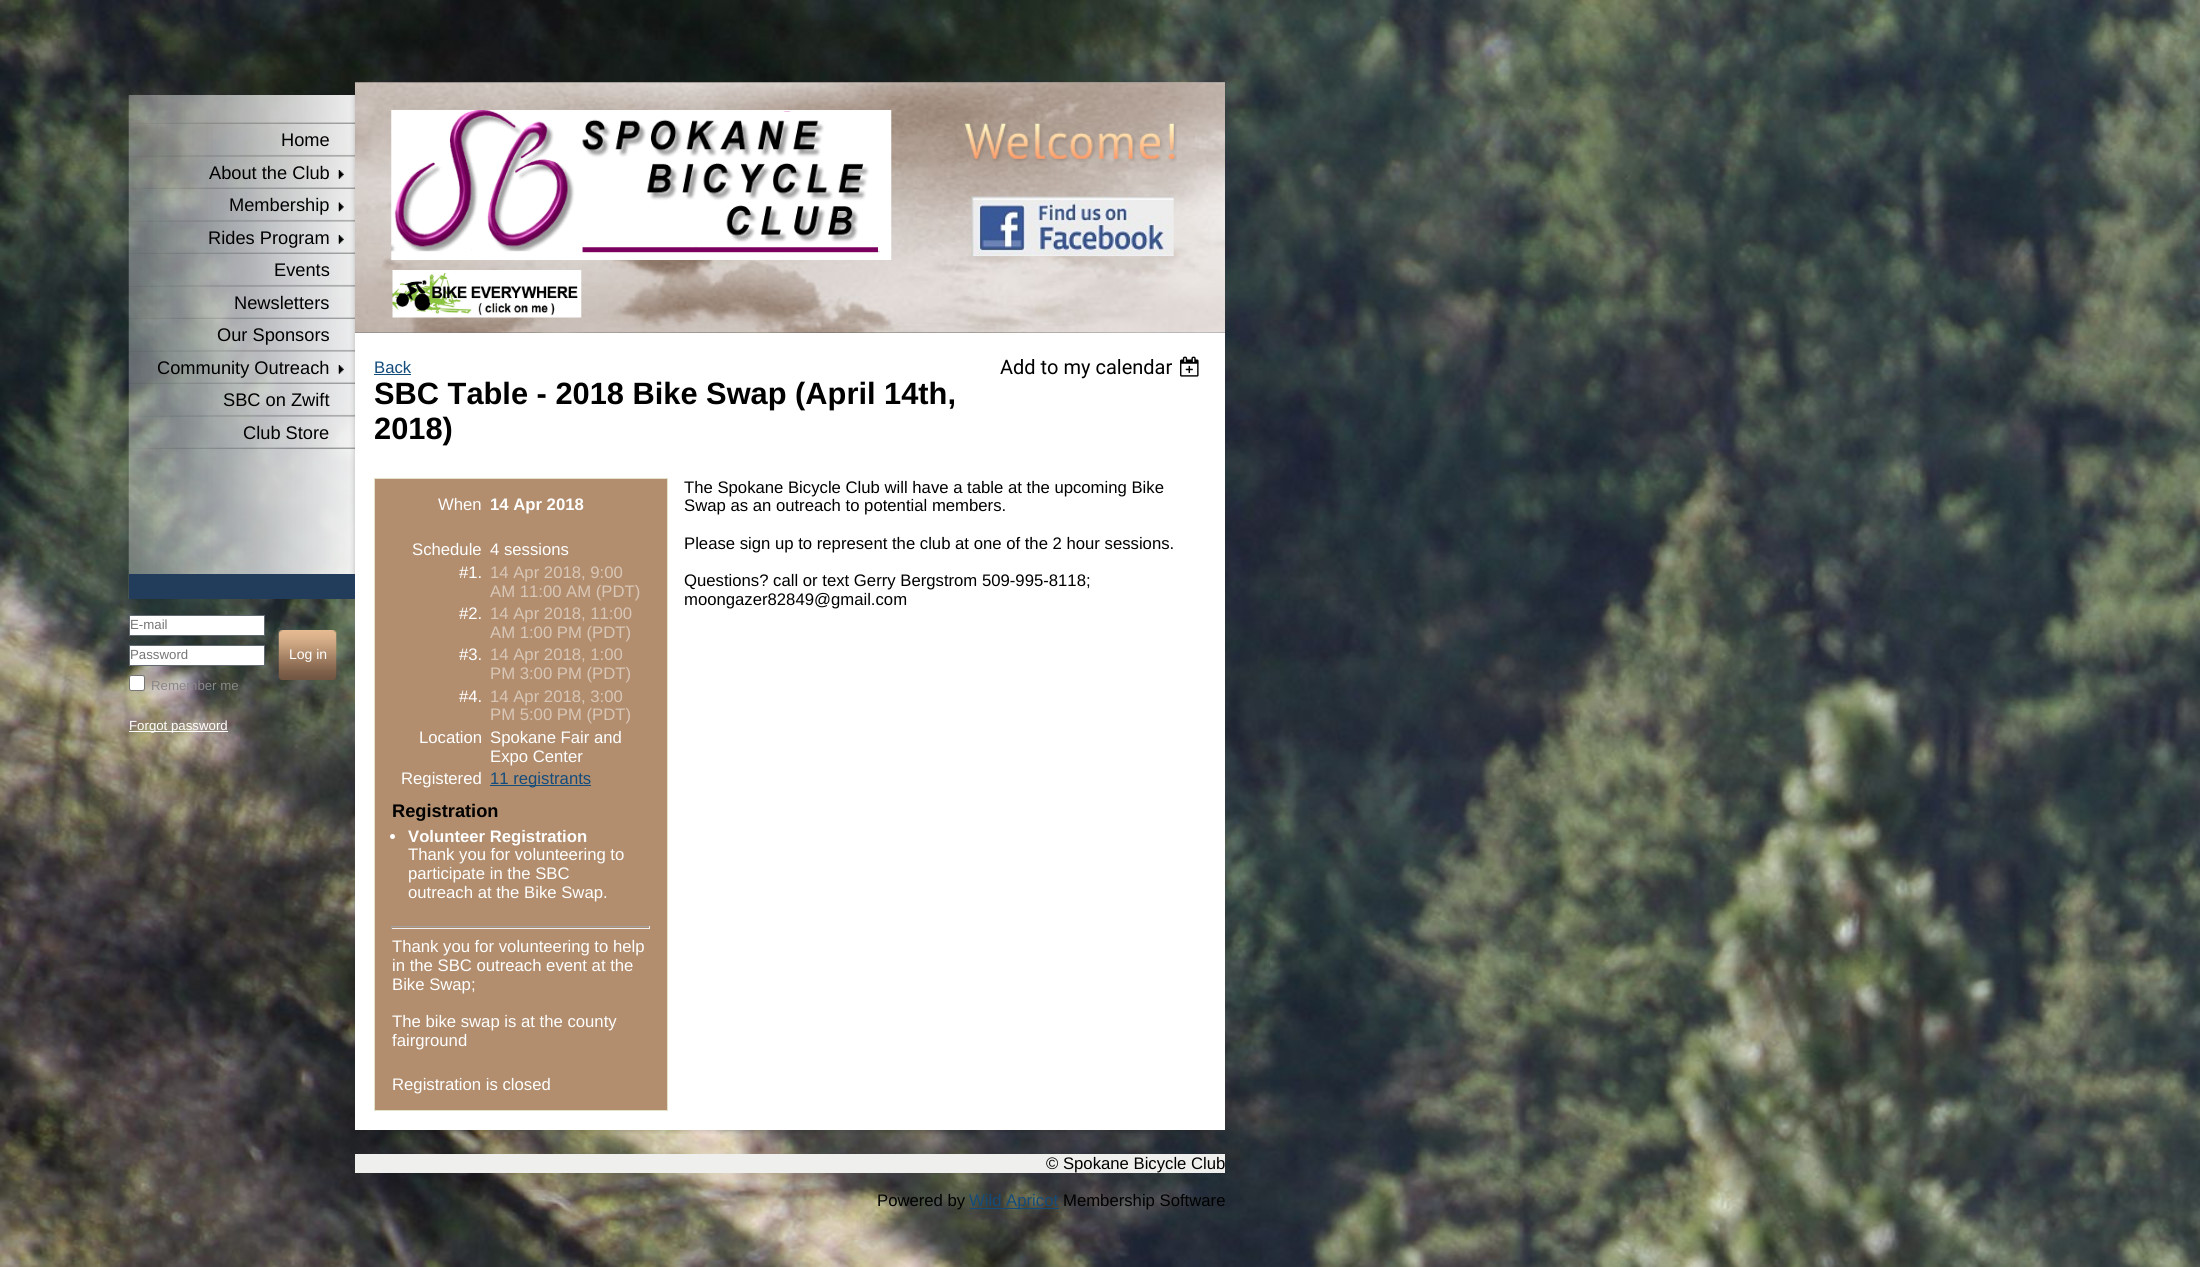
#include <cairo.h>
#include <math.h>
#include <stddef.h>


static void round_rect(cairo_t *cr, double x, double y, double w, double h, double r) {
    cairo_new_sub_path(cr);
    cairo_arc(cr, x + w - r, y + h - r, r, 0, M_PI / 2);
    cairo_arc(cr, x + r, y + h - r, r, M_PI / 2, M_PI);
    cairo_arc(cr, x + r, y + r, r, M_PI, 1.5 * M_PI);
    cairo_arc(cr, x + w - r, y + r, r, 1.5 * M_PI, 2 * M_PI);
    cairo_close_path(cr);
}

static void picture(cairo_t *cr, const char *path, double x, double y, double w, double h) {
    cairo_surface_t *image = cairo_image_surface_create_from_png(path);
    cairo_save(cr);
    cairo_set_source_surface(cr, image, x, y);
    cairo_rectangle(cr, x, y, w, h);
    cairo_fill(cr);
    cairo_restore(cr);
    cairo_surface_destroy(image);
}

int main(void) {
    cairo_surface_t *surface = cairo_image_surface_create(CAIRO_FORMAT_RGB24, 2200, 1267);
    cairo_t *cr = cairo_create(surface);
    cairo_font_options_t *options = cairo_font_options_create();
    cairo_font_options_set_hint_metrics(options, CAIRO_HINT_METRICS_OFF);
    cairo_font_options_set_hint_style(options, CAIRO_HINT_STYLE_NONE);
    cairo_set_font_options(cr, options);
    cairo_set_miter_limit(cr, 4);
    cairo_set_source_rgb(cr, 1, 1, 1);
    cairo_paint(cr);
    picture(cr, "img1.png", 0, 0, 2200, 1267);
    picture(cr, "img2.png", 355, 82, 870, 251);
    cairo_set_source_rgba(cr, 0, 0, 0, 0.07);
    cairo_rectangle(cr, 1220, 332, 3, 1);
    cairo_fill(cr);
    picture(cr, "img3.png", 355, 82, 870, 251);
    picture(cr, "img4.png", 391, 110, 501, 150);
    picture(cr, "img5.png", 965, 123, 212, 39);
    picture(cr, "img6.png", 971, 196, 203, 61);
    picture(cr, "img7.png", 392, 270, 190, 48);
    picture(cr, "img8.png", 128, 95, 227, 29);
    picture(cr, "img9.png", 128, 123, 227, 34);
    cairo_select_font_face(cr, "Liberation Sans", CAIRO_FONT_SLANT_NORMAL, CAIRO_FONT_WEIGHT_NORMAL);
    cairo_set_font_size(cr, 18.25);
    cairo_set_source_rgb(cr, 0, 0, 0);
    cairo_move_to(cr, 281, 146);
    cairo_show_text(cr, "Home");
    picture(cr, "img10.png", 128, 156, 227, 33);
    picture(cr, "img11.png", 338, 170, 6, 9);
    cairo_move_to(cr, 209, 179);
    cairo_show_text(cr, "About the Club");
    picture(cr, "img12.png", 128, 188, 227, 34);
    picture(cr, "img13.png", 338, 202, 6, 10);
    cairo_move_to(cr, 229, 211);
    cairo_show_text(cr, "Membership");
    picture(cr, "img14.png", 128, 221, 227, 33);
    picture(cr, "img15.png", 338, 235, 6, 9);
    cairo_move_to(cr, 208, 244);
    cairo_show_text(cr, "Rides Program");
    picture(cr, "img16.png", 128, 253, 227, 34);
    cairo_move_to(cr, 274, 276);
    cairo_show_text(cr, "Events");
    picture(cr, "img17.png", 128, 286, 227, 33);
    cairo_move_to(cr, 234, 309);
    cairo_show_text(cr, "Newsletters");
    picture(cr, "img18.png", 128, 318, 227, 34);
    cairo_move_to(cr, 217, 341);
    cairo_show_text(cr, "Our Sponsors");
    picture(cr, "img19.png", 128, 351, 227, 33);
    picture(cr, "img20.png", 338, 365, 6, 9);
    cairo_move_to(cr, 157, 374);
    cairo_show_text(cr, "Community Outreach");
    picture(cr, "img21.png", 128, 383, 227, 34);
    cairo_move_to(cr, 223, 406);
    cairo_show_text(cr, "SBC on Zwift");
    picture(cr, "img23.png", 128, 448, 227, 151);
    picture(cr, "img22.png", 128, 416, 227, 33);
    cairo_move_to(cr, 243, 439);
    cairo_show_text(cr, "Club Store");
    cairo_set_source_rgb(cr, 0.129, 0.239, 0.357);
    cairo_rectangle(cr, 129, 574, 226, 25);
    cairo_fill(cr);
    cairo_set_source_rgb(cr, 1, 1, 1);
    cairo_rectangle(cr, 129.5, 615.5, 135, 20);
    cairo_fill_preserve(cr);
    cairo_set_source_rgb(cr, 0.384, 0.416, 0.443);
    cairo_set_line_width(cr, 1);
    cairo_stroke(cr);
    cairo_set_font_size(cr, 13.25);
    cairo_set_source_rgb(cr, 0.459, 0.459, 0.459);
    cairo_move_to(cr, 130, 629);
    cairo_show_text(cr, "E-mail");
    cairo_set_source_rgb(cr, 1, 1, 1);
    cairo_rectangle(cr, 129.5, 645.5, 135, 20);
    cairo_fill_preserve(cr);
    cairo_set_source_rgb(cr, 0.384, 0.416, 0.443);
    cairo_stroke(cr);
    cairo_set_source_rgb(cr, 0.459, 0.459, 0.459);
    cairo_move_to(cr, 130, 659);
    cairo_show_text(cr, "Password");
    picture(cr, "img24.png", 278, 630, 59, 50);
    cairo_set_font_size(cr, 14);
    cairo_set_source_rgb(cr, 1, 1, 1);
    cairo_move_to(cr, 289, 659);
    cairo_show_text(cr, "Log in");
    round_rect(cr, 129.5, 675.5, 15, 15, 2);
    cairo_fill_preserve(cr);
    cairo_set_source_rgb(cr, 0.463, 0.463, 0.463);
    cairo_stroke(cr);
    cairo_set_font_size(cr, 13.25);
    cairo_set_source_rgb(cr, 0.533, 0.533, 0.533);
    cairo_move_to(cr, 151, 690);
    cairo_show_text(cr, "Remember me");
    cairo_set_source_rgb(cr, 1, 1, 1);
    cairo_rectangle(cr, 129, 731, 99, 1);
    cairo_fill(cr);
    cairo_move_to(cr, 129, 730);
    cairo_show_text(cr, "Forgot password");
    cairo_rectangle(cr, 355, 333, 870, 797);
    cairo_fill(cr);
    cairo_set_font_size(cr, 16.7);
    cairo_set_source_rgb(cr, 0.075, 0.294, 0.482);
    cairo_move_to(cr, 374, 373);
    cairo_show_text(cr, "Back");
    cairo_rectangle(cr, 374, 374, 37, 1);
    cairo_fill(cr);
    cairo_select_font_face(cr, "Roboto", CAIRO_FONT_SLANT_NORMAL, CAIRO_FONT_WEIGHT_NORMAL);
    cairo_set_font_size(cr, 20);
    cairo_set_source_rgb(cr, 0, 0, 0);
    cairo_move_to(cr, 1000, 374);
    cairo_show_text(cr, "Add to my calendar");
    picture(cr, "img25.png", 1180, 356, 19, 21);
    cairo_select_font_face(cr, "Liberation Sans", CAIRO_FONT_SLANT_NORMAL, CAIRO_FONT_WEIGHT_BOLD);
    cairo_set_font_size(cr, 30.8);
    cairo_move_to(cr, 374, 404);
    cairo_show_text(cr, "SBC Table - 2018 Bike Swap (April 14th,");
    cairo_move_to(cr, 374, 439);
    cairo_show_text(cr, "2018)");
    cairo_set_source_rgb(cr, 0.698, 0.557, 0.435);
    cairo_rectangle(cr, 374.5, 478.5, 293, 632);
    cairo_fill_preserve(cr);
    cairo_set_source_rgb(cr, 0.886, 0.89, 0.788);
    cairo_stroke(cr);
    cairo_select_font_face(cr, "Liberation Sans", CAIRO_FONT_SLANT_NORMAL, CAIRO_FONT_WEIGHT_NORMAL);
    cairo_set_font_size(cr, 16.7);
    cairo_set_source_rgb(cr, 1, 1, 1);
    cairo_move_to(cr, 438, 510);
    cairo_show_text(cr, "When");
    cairo_select_font_face(cr, "Liberation Sans", CAIRO_FONT_SLANT_NORMAL, CAIRO_FONT_WEIGHT_BOLD);
    cairo_move_to(cr, 490, 510);
    cairo_show_text(cr, "14 Apr 2018");
    cairo_select_font_face(cr, "Liberation Sans", CAIRO_FONT_SLANT_NORMAL, CAIRO_FONT_WEIGHT_NORMAL);
    cairo_move_to(cr, 412, 555);
    cairo_show_text(cr, "Schedule");
    cairo_move_to(cr, 490, 555);
    cairo_show_text(cr, "4 sessions");
    cairo_move_to(cr, 459, 578);
    cairo_show_text(cr, "#1.");
    cairo_set_source_rgb(cr, 0.851, 0.78, 0.718);
    cairo_move_to(cr, 490, 578);
    cairo_show_text(cr, "14 Apr 2018, 9:00");
    cairo_move_to(cr, 490, 597);
    cairo_show_text(cr, "AM 11:00 AM (PDT)");
    cairo_set_source_rgb(cr, 1, 1, 1);
    cairo_move_to(cr, 459, 619);
    cairo_show_text(cr, "#2.");
    cairo_set_source_rgb(cr, 0.851, 0.78, 0.718);
    cairo_move_to(cr, 490, 619);
    cairo_show_text(cr, "14 Apr 2018, 11:00");
    cairo_move_to(cr, 490, 638);
    cairo_show_text(cr, "AM 1:00 PM (PDT)");
    cairo_set_source_rgb(cr, 1, 1, 1);
    cairo_move_to(cr, 459, 660);
    cairo_show_text(cr, "#3.");
    cairo_set_source_rgb(cr, 0.851, 0.78, 0.718);
    cairo_move_to(cr, 490, 660);
    cairo_show_text(cr, "14 Apr 2018, 1:00");
    cairo_move_to(cr, 490, 679);
    cairo_show_text(cr, "PM 3:00 PM (PDT)");
    cairo_set_source_rgb(cr, 1, 1, 1);
    cairo_move_to(cr, 459, 702);
    cairo_show_text(cr, "#4.");
    cairo_set_source_rgb(cr, 0.851, 0.78, 0.718);
    cairo_move_to(cr, 490, 702);
    cairo_show_text(cr, "14 Apr 2018, 3:00");
    cairo_move_to(cr, 490, 720);
    cairo_show_text(cr, "PM 5:00 PM (PDT)");
    cairo_set_source_rgb(cr, 1, 1, 1);
    cairo_move_to(cr, 419, 743);
    cairo_show_text(cr, "Location");
    cairo_move_to(cr, 490, 743);
    cairo_show_text(cr, "Spokane Fair and");
    cairo_move_to(cr, 490, 762);
    cairo_show_text(cr, "Expo Center");
    cairo_move_to(cr, 401, 784);
    cairo_show_text(cr, "Registered");
    cairo_set_source_rgb(cr, 0.075, 0.294, 0.482);
    cairo_rectangle(cr, 490, 785, 101, 1);
    cairo_fill(cr);
    cairo_move_to(cr, 490, 784);
    cairo_show_text(cr, "11 registrants");
    cairo_select_font_face(cr, "Liberation Sans", CAIRO_FONT_SLANT_NORMAL, CAIRO_FONT_WEIGHT_BOLD);
    cairo_set_font_size(cr, 18.25);
    cairo_set_source_rgb(cr, 0, 0, 0);
    cairo_move_to(cr, 392, 817);
    cairo_show_text(cr, "Registration");
    cairo_set_source_rgb(cr, 1, 1, 1);
    cairo_new_path(cr);
    cairo_arc(cr, 392.5, 836.5, 2.5, 0, 2 * M_PI);
    cairo_fill(cr);
    cairo_set_font_size(cr, 16.7);
    cairo_move_to(cr, 408, 842);
    cairo_show_text(cr, "Volunteer Registration");
    cairo_select_font_face(cr, "Liberation Sans", CAIRO_FONT_SLANT_NORMAL, CAIRO_FONT_WEIGHT_NORMAL);
    cairo_move_to(cr, 408, 860);
    cairo_show_text(cr, "Thank you for volunteering to");
    cairo_move_to(cr, 408, 879);
    cairo_show_text(cr, "participate in the SBC");
    cairo_move_to(cr, 408, 898);
    cairo_show_text(cr, "outreach at the Bike Swap.");
    cairo_set_source_rgb(cr, 0.624, 0.624, 0.624);
    cairo_rectangle(cr, 391, 926, 259, 1);
    cairo_fill(cr);
    cairo_set_source_rgb(cr, 0.933, 0.933, 0.933);
    cairo_rectangle(cr, 649, 926, 1, 3);
    cairo_fill(cr);
    cairo_rectangle(cr, 391, 928, 259, 1);
    cairo_fill(cr);
    cairo_set_source_rgb(cr, 0.624, 0.624, 0.624);
    cairo_rectangle(cr, 391, 926, 1, 3);
    cairo_fill(cr);
    cairo_set_source_rgb(cr, 1, 1, 1);
    cairo_move_to(cr, 392, 952);
    cairo_show_text(cr, "Thank you for volunteering to help");
    cairo_move_to(cr, 392, 971);
    cairo_show_text(cr, "in the SBC outreach event at the");
    cairo_move_to(cr, 392, 990);
    cairo_show_text(cr, "Bike Swap;");
    cairo_move_to(cr, 392, 1027);
    cairo_show_text(cr, "The bike swap is at the county");
    cairo_move_to(cr, 392, 1046);
    cairo_show_text(cr, "fairground");
    cairo_move_to(cr, 392, 1090);
    cairo_show_text(cr, "Registration is closed");
    cairo_set_source_rgb(cr, 0, 0, 0);
    cairo_move_to(cr, 684, 493);
    cairo_show_text(cr, "The Spokane Bicycle Club will have a table at the upcoming Bike");
    cairo_move_to(cr, 684, 511);
    cairo_show_text(cr, "Swap as an outreach to potential members.");
    cairo_move_to(cr, 684, 549);
    cairo_show_text(cr, "Please sign up to represent the club at one of the 2 hour sessions.");
    cairo_move_to(cr, 684, 586);
    cairo_show_text(cr, "Questions? call or text Gerry Bergstrom 509-995-8118;");
    cairo_move_to(cr, 684, 605);
    cairo_show_text(cr, "moongazer82849@gmail.com");
    picture(cr, "img26.png", 372, 1130, 847, 4);
    cairo_set_source_rgb(cr, 0.937, 0.937, 0.929);
    cairo_rectangle(cr, 355, 1154, 870, 19);
    cairo_fill(cr);
    cairo_set_source_rgb(cr, 0, 0, 0);
    cairo_move_to(cr, 1046, 1169);
    cairo_show_text(cr, "© Spokane Bicycle Club");
    cairo_move_to(cr, 877, 1206);
    cairo_show_text(cr, "Powered by");
    cairo_set_source_rgb(cr, 0.075, 0.294, 0.482);
    cairo_rectangle(cr, 970, 1208, 89, 1);
    cairo_fill(cr);
    cairo_move_to(cr, 969, 1206);
    cairo_show_text(cr, "Wild Apricot");
    cairo_set_source_rgb(cr, 0, 0, 0);
    cairo_move_to(cr, 1063, 1206);
    cairo_show_text(cr, "Membership Software");
    cairo_surface_write_to_png(surface, "page.png");
    cairo_font_options_destroy(options);
    cairo_destroy(cr);
    cairo_surface_destroy(surface);
    return 0;
}
